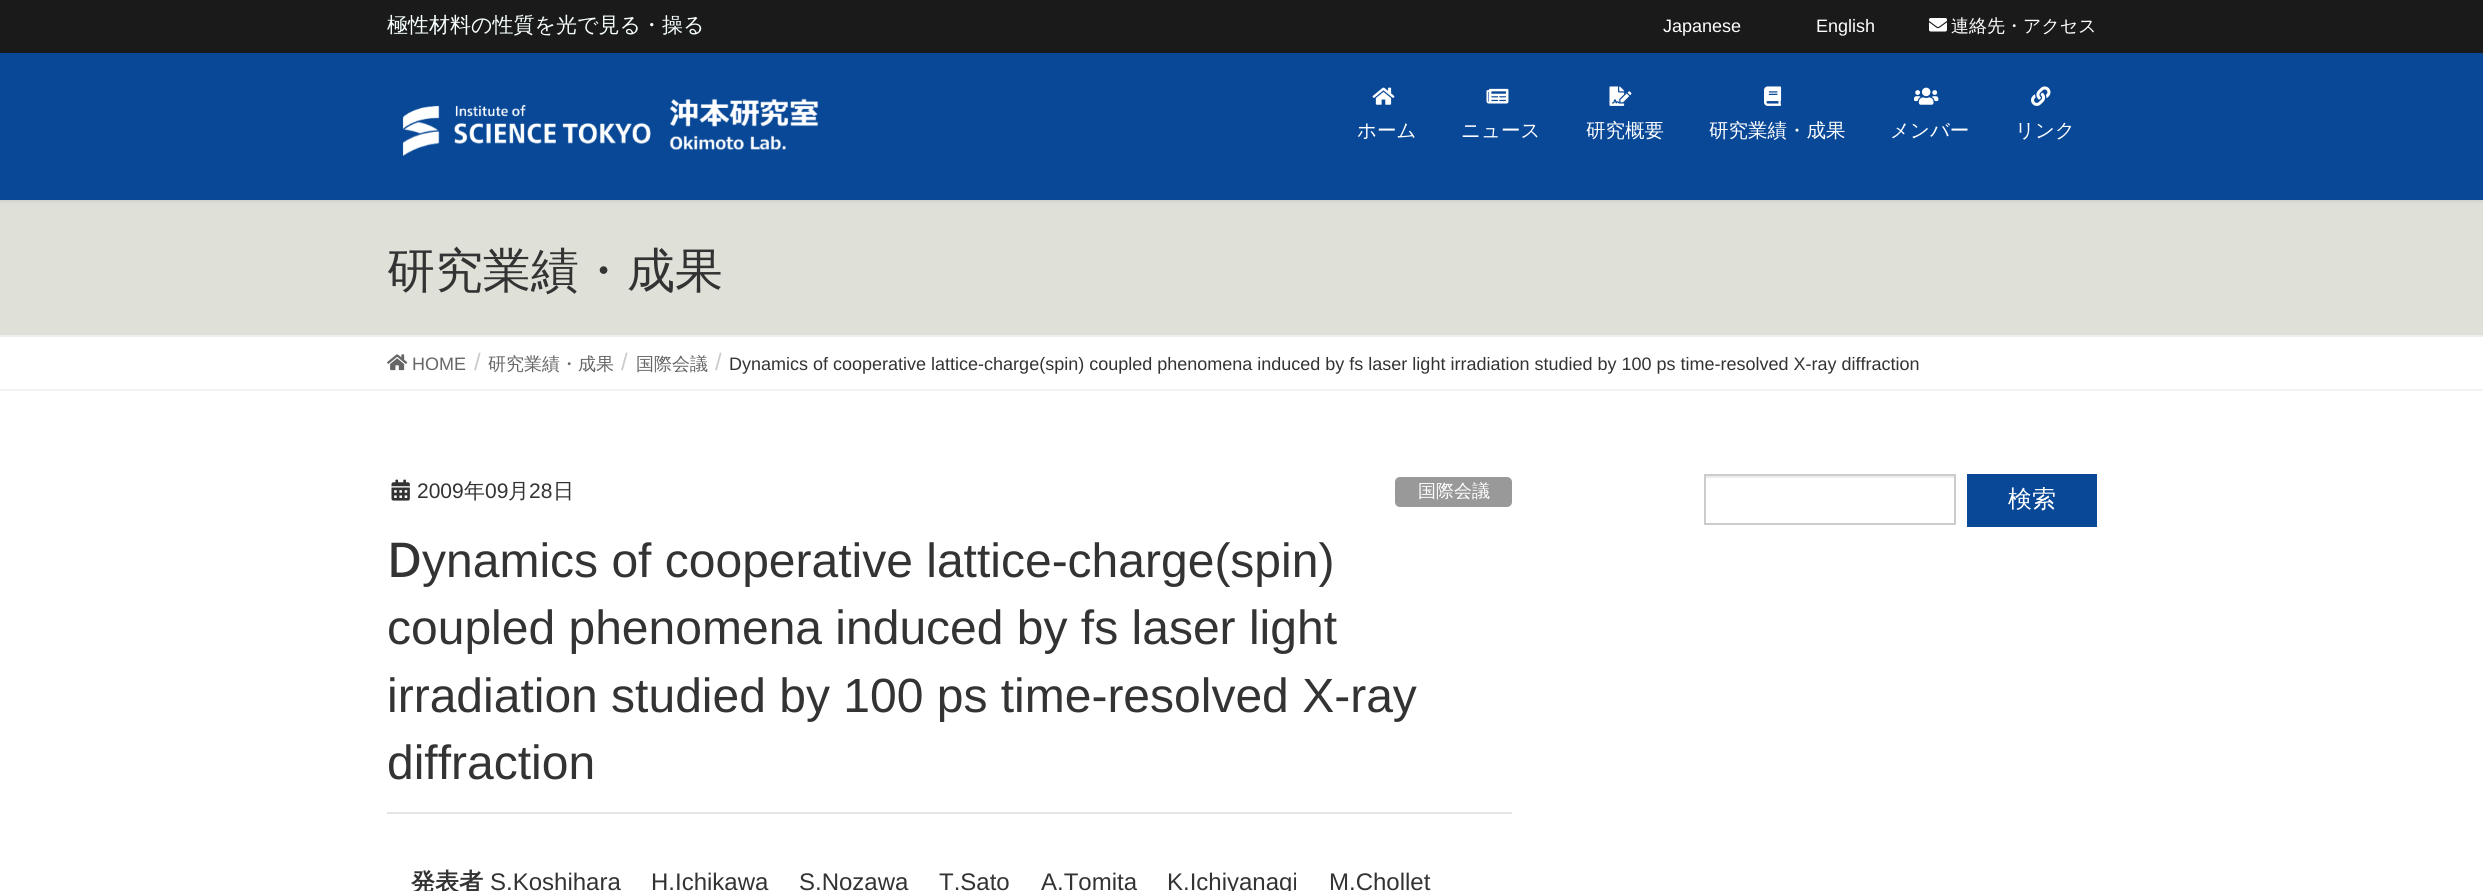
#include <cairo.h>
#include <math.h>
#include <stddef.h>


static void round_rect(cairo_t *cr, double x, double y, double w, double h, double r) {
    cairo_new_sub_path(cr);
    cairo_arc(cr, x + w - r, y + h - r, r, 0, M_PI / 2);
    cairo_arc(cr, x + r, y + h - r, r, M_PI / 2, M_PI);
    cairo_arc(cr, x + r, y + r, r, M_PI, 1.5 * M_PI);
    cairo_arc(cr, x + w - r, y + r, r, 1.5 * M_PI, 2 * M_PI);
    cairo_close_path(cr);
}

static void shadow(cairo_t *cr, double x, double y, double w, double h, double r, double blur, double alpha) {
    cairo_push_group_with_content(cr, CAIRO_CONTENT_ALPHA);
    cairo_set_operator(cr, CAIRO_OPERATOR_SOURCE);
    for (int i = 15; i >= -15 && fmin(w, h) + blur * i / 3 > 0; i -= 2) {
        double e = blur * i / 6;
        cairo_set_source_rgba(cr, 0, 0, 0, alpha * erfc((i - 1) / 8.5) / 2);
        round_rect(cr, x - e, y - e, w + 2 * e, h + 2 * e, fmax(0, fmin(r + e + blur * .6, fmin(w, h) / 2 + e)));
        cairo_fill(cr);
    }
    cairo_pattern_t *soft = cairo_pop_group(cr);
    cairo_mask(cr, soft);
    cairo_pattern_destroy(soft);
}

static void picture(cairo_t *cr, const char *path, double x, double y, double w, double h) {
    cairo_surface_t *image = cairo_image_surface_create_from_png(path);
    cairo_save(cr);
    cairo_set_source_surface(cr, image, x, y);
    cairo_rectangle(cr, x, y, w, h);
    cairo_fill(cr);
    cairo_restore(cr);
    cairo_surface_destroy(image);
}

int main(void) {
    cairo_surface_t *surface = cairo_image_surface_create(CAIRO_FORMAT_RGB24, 2483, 891);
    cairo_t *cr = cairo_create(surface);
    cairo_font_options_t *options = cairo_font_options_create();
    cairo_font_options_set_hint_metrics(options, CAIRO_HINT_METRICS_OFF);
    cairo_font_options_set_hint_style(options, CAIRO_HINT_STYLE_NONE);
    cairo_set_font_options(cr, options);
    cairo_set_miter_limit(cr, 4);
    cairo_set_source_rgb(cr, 1, 1, 1);
    cairo_paint(cr);
    cairo_set_source_rgb(cr, 0.875, 0.878, 0.847);
    cairo_rectangle(cr, 0, 200, 2483, 135);
    cairo_fill(cr);
    cairo_set_source_rgb(cr, 0, 0, 0);
    shadow(cr, 0, 2, 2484, 199, 0, 2, 0.1);
    cairo_set_source_rgb(cr, 0.035, 0.282, 0.592);
    cairo_rectangle(cr, 0, 53, 2483, 147);
    cairo_fill(cr);
    cairo_set_source_rgb(cr, 0.102, 0.102, 0.102);
    cairo_rectangle(cr, 0, 0, 2483, 53);
    cairo_fill(cr);
    cairo_select_font_face(cr, "WenQuanYi Zen Hei Medium", CAIRO_FONT_SLANT_NORMAL, CAIRO_FONT_WEIGHT_NORMAL);
    cairo_set_font_size(cr, 21);
    cairo_set_source_rgb(cr, 0.965, 1, 1);
    cairo_move_to(cr, 387, 32);
    cairo_show_text(cr, "極性材料の性質を光で見る・操る");
    cairo_select_font_face(cr, "Liberation Sans", CAIRO_FONT_SLANT_NORMAL, CAIRO_FONT_WEIGHT_NORMAL);
    cairo_set_font_size(cr, 18);
    cairo_set_source_rgb(cr, 1, 1, 1);
    cairo_move_to(cr, 1663, 32);
    cairo_show_text(cr, "Japanese");
    cairo_move_to(cr, 1816, 32);
    cairo_show_text(cr, "English");
    picture(cr, "img1.png", 1929, 18, 18, 14);
    cairo_select_font_face(cr, "WenQuanYi Zen Hei Medium", CAIRO_FONT_SLANT_NORMAL, CAIRO_FONT_WEIGHT_NORMAL);
    cairo_move_to(cr, 1951, 32);
    cairo_show_text(cr, "連絡先・アクセス");
    picture(cr, "img2.png", 402, 98, 417, 58);
    picture(cr, "img3.png", 1372, 87, 23, 18);
    cairo_set_font_size(cr, 19.5);
    cairo_move_to(cr, 1357, 137);
    cairo_show_text(cr, "ホーム");
    picture(cr, "img4.png", 1486, 88, 23, 16);
    cairo_move_to(cr, 1461, 137);
    cairo_show_text(cr, "ニュース");
    picture(cr, "img5.png", 1609, 86, 23, 20);
    cairo_move_to(cr, 1586, 137);
    cairo_show_text(cr, "研究概要");
    picture(cr, "img6.png", 1764, 86, 18, 20);
    cairo_move_to(cr, 1709, 137);
    cairo_show_text(cr, "研究業績・成果");
    picture(cr, "img7.png", 1914, 87, 25, 18);
    cairo_move_to(cr, 1890, 137);
    cairo_show_text(cr, "メンバー");
    picture(cr, "img8.png", 2031, 86, 20, 20);
    cairo_move_to(cr, 2015, 137);
    cairo_show_text(cr, "リンク");
    cairo_set_source_rgb(cr, 0.933, 0.933, 0.933);
    cairo_rectangle(cr, 0, 335, 2483, 2);
    cairo_fill(cr);
    cairo_set_font_size(cr, 48);
    cairo_set_source_rgb(cr, 0.2, 0.2, 0.2);
    cairo_move_to(cr, 387, 287);
    cairo_show_text(cr, "研究業績・成果");
    cairo_set_source_rgb(cr, 0.953, 0.953, 0.953);
    cairo_rectangle(cr, 0, 389, 2483, 2);
    cairo_fill(cr);
    picture(cr, "img9.png", 387, 354, 21, 17);
    cairo_select_font_face(cr, "Liberation Sans", CAIRO_FONT_SLANT_NORMAL, CAIRO_FONT_WEIGHT_NORMAL);
    cairo_set_font_size(cr, 18);
    cairo_set_source_rgb(cr, 0.4, 0.4, 0.4);
    cairo_move_to(cr, 412, 370);
    cairo_show_text(cr, "HOME");
    cairo_set_font_size(cr, 24);
    cairo_set_source_rgb(cr, 0.8, 0.8, 0.8);
    cairo_move_to(cr, 474, 370);
    cairo_show_text(cr, "/");
    cairo_select_font_face(cr, "WenQuanYi Zen Hei Medium", CAIRO_FONT_SLANT_NORMAL, CAIRO_FONT_WEIGHT_NORMAL);
    cairo_set_font_size(cr, 18);
    cairo_set_source_rgb(cr, 0.4, 0.4, 0.4);
    cairo_move_to(cr, 488, 370);
    cairo_show_text(cr, "研究業績・成果");
    cairo_select_font_face(cr, "Liberation Sans", CAIRO_FONT_SLANT_NORMAL, CAIRO_FONT_WEIGHT_NORMAL);
    cairo_set_font_size(cr, 24);
    cairo_set_source_rgb(cr, 0.8, 0.8, 0.8);
    cairo_move_to(cr, 621, 370);
    cairo_show_text(cr, "/");
    cairo_select_font_face(cr, "WenQuanYi Zen Hei Medium", CAIRO_FONT_SLANT_NORMAL, CAIRO_FONT_WEIGHT_NORMAL);
    cairo_set_font_size(cr, 18);
    cairo_set_source_rgb(cr, 0.4, 0.4, 0.4);
    cairo_move_to(cr, 636, 370);
    cairo_show_text(cr, "国際会議");
    cairo_select_font_face(cr, "Liberation Sans", CAIRO_FONT_SLANT_NORMAL, CAIRO_FONT_WEIGHT_NORMAL);
    cairo_set_font_size(cr, 24);
    cairo_set_source_rgb(cr, 0.8, 0.8, 0.8);
    cairo_move_to(cr, 715, 370);
    cairo_show_text(cr, "/");
    cairo_set_font_size(cr, 18);
    cairo_set_source_rgb(cr, 0.2, 0.2, 0.2);
    cairo_move_to(cr, 729, 370);
    cairo_show_text(cr, "Dynamics of cooperative lattice-charge(spin) coupled phenomena induced by fs laser light irradiation studied by 100 ps time-resolved X-ray diffraction");
    cairo_set_source_rgb(cr, 0.898, 0.898, 0.898);
    cairo_rectangle(cr, 387, 812, 1125, 2);
    cairo_fill(cr);
    picture(cr, "img10.png", 391, 479, 19, 22);
    cairo_set_font_size(cr, 21);
    cairo_set_source_rgb(cr, 0.2, 0.2, 0.2);
    cairo_move_to(cr, 417, 498);
    cairo_show_text(cr, "2009");
    cairo_select_font_face(cr, "WenQuanYi Zen Hei Medium", CAIRO_FONT_SLANT_NORMAL, CAIRO_FONT_WEIGHT_NORMAL);
    cairo_move_to(cr, 464, 498);
    cairo_show_text(cr, "年");
    cairo_select_font_face(cr, "Liberation Sans", CAIRO_FONT_SLANT_NORMAL, CAIRO_FONT_WEIGHT_NORMAL);
    cairo_move_to(cr, 485, 498);
    cairo_show_text(cr, "09");
    cairo_select_font_face(cr, "WenQuanYi Zen Hei Medium", CAIRO_FONT_SLANT_NORMAL, CAIRO_FONT_WEIGHT_NORMAL);
    cairo_move_to(cr, 508, 498);
    cairo_show_text(cr, "月");
    cairo_select_font_face(cr, "Liberation Sans", CAIRO_FONT_SLANT_NORMAL, CAIRO_FONT_WEIGHT_NORMAL);
    cairo_move_to(cr, 529, 498);
    cairo_show_text(cr, "28");
    cairo_select_font_face(cr, "WenQuanYi Zen Hei Medium", CAIRO_FONT_SLANT_NORMAL, CAIRO_FONT_WEIGHT_NORMAL);
    cairo_move_to(cr, 553, 498);
    cairo_show_text(cr, "日");
    cairo_set_source_rgb(cr, 0.6, 0.6, 0.6);
    round_rect(cr, 1395, 477, 117, 30, 5);
    cairo_fill(cr);
    cairo_set_font_size(cr, 18);
    cairo_set_source_rgb(cr, 1, 1, 1);
    cairo_move_to(cr, 1418, 497);
    cairo_show_text(cr, "国際会議");
    cairo_select_font_face(cr, "Noto Sans Medium", CAIRO_FONT_SLANT_NORMAL, CAIRO_FONT_WEIGHT_NORMAL);
    cairo_set_font_size(cr, 48);
    cairo_set_source_rgb(cr, 0.2, 0.2, 0.2);
    cairo_move_to(cr, 387, 577);
    cairo_show_text(cr, "D");
    cairo_select_font_face(cr, "Liberation Sans", CAIRO_FONT_SLANT_NORMAL, CAIRO_FONT_WEIGHT_NORMAL);
    cairo_move_to(cr, 422, 577);
    cairo_show_text(cr, "ynamics of cooperative lattice-charge(spin)");
    cairo_move_to(cr, 387, 644);
    cairo_show_text(cr, "coupled phenomena induced by fs laser light");
    cairo_move_to(cr, 387, 712);
    cairo_show_text(cr, "irradiation studied by 100 ps time-resolved X-ray");
    cairo_move_to(cr, 387, 779);
    cairo_show_text(cr, "diffraction");
    cairo_select_font_face(cr, "WenQuanYi Zen Hei", CAIRO_FONT_SLANT_NORMAL, CAIRO_FONT_WEIGHT_BOLD);
    cairo_set_font_size(cr, 24);
    cairo_move_to(cr, 411, 890);
    cairo_show_text(cr, "発表者");
    cairo_select_font_face(cr, "Liberation Sans", CAIRO_FONT_SLANT_NORMAL, CAIRO_FONT_WEIGHT_NORMAL);
    cairo_move_to(cr, 490, 890);
    cairo_show_text(cr, "S.Koshihara");
    cairo_move_to(cr, 651, 890);
    cairo_show_text(cr, "H.Ichikawa");
    cairo_move_to(cr, 799, 890);
    cairo_show_text(cr, "S.Nozawa");
    cairo_move_to(cr, 939, 890);
    cairo_show_text(cr, "T.Sato");
    cairo_move_to(cr, 1041, 890);
    cairo_show_text(cr, "A.Tomita");
    cairo_move_to(cr, 1167, 890);
    cairo_show_text(cr, "K.Ichiyanagi");
    cairo_move_to(cr, 1329, 890);
    cairo_show_text(cr, "M.Chollet");
    cairo_set_source_rgb(cr, 0.925, 0.925, 0.925);
    cairo_rectangle(cr, 1706, 476, 249, 2);
    cairo_fill(cr);
    cairo_rectangle(cr, 1705, 475, 250, 49);
    cairo_set_source_rgb(cr, 0.8, 0.8, 0.8);
    cairo_stroke(cr);
    cairo_set_source_rgb(cr, 0.035, 0.282, 0.592);
    cairo_rectangle(cr, 1967, 474, 130, 53);
    cairo_fill(cr);
    cairo_select_font_face(cr, "WenQuanYi Zen Hei Medium", CAIRO_FONT_SLANT_NORMAL, CAIRO_FONT_WEIGHT_NORMAL);
    cairo_set_source_rgb(cr, 1, 1, 1);
    cairo_move_to(cr, 2008, 507);
    cairo_show_text(cr, "検索");
    cairo_surface_write_to_png(surface, "page.png");
    cairo_font_options_destroy(options);
    cairo_destroy(cr);
    cairo_surface_destroy(surface);
    return 0;
}
